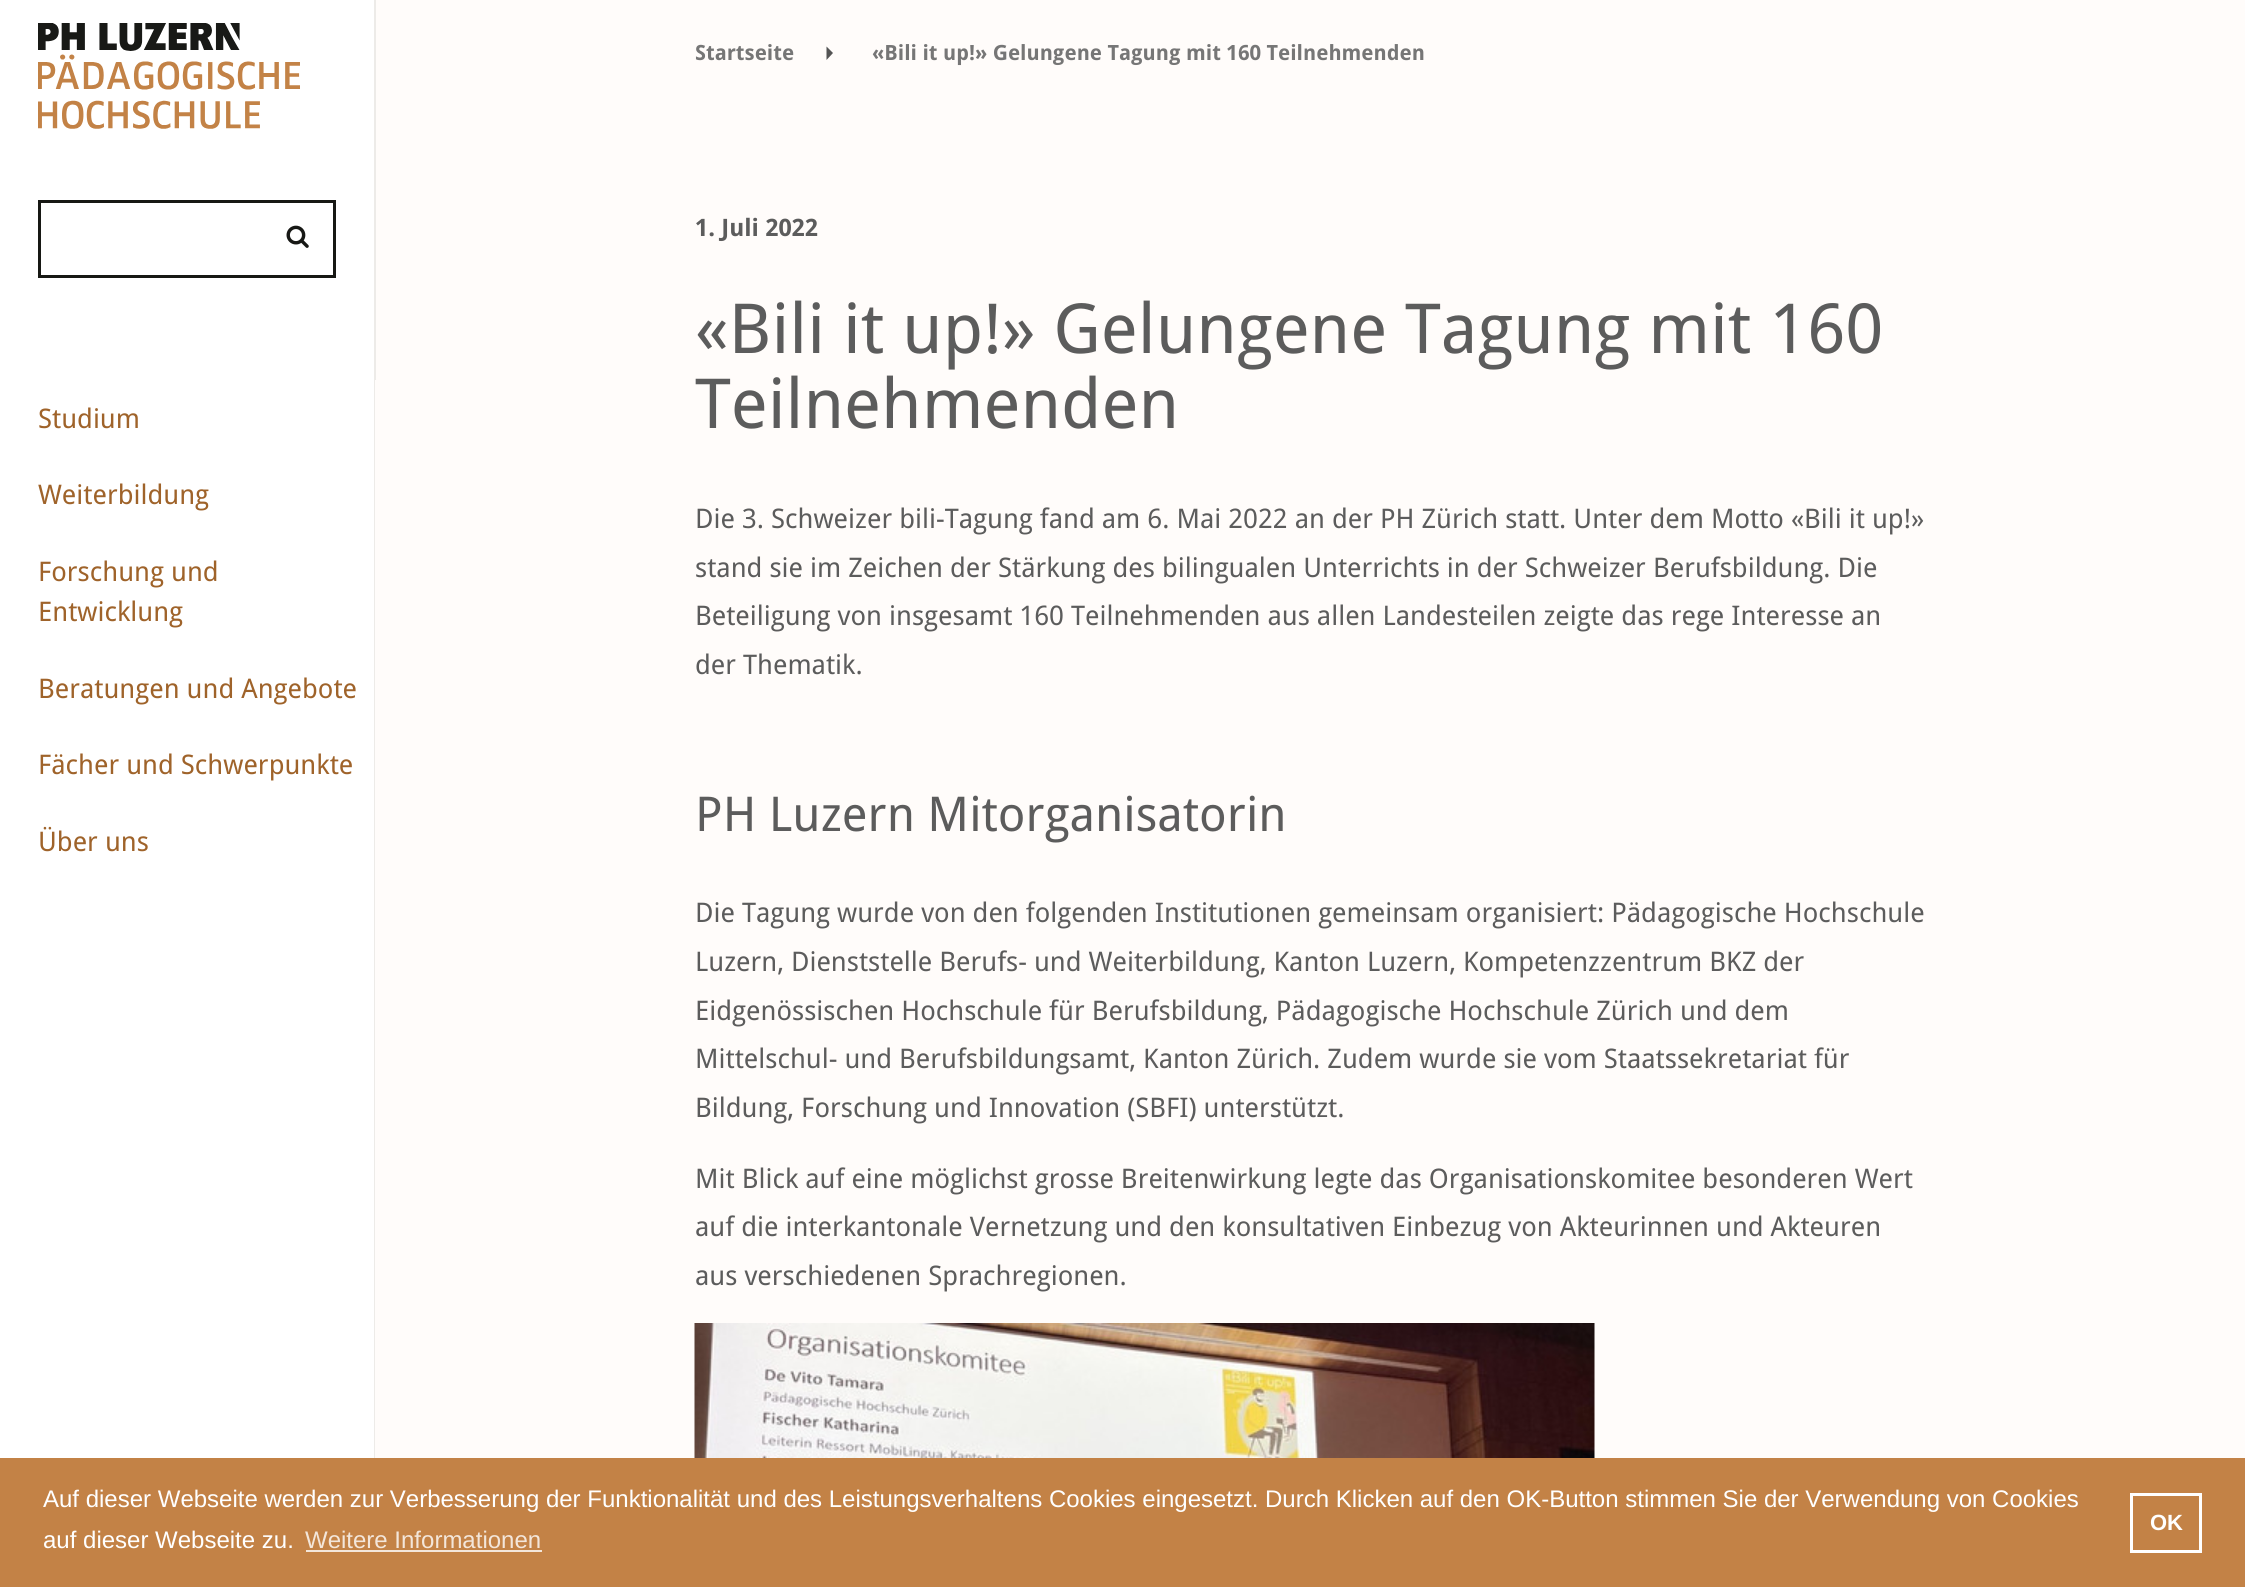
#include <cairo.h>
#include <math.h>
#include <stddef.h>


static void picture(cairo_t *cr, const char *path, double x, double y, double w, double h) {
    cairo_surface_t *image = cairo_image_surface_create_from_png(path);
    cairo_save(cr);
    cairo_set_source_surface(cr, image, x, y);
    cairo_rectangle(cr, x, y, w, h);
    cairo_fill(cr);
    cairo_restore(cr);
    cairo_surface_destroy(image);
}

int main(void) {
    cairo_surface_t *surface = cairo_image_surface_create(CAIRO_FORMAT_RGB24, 2245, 1587);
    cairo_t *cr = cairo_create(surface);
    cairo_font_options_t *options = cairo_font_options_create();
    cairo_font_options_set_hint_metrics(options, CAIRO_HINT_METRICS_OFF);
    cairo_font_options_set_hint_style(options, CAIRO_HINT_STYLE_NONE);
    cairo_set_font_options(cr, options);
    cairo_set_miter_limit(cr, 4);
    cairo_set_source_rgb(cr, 1, 1, 1);
    cairo_paint(cr);
    cairo_set_source_rgb(cr, 1, 0.988, 0.98);
    cairo_rectangle(cr, 375, 0, 1870, 1458);
    cairo_fill(cr);
    cairo_set_source_rgb(cr, 0.929, 0.918, 0.91);
    cairo_rectangle(cr, 374, 0, 2, 380);
    cairo_fill(cr);
    picture(cr, "img1.png", 38, 23, 262, 106);
    cairo_rectangle(cr, 39.5, 201.5, 295, 75);
    cairo_set_source_rgb(cr, 0.09, 0.094, 0.082);
    cairo_set_line_width(cr, 3);
    cairo_stroke(cr);
    picture(cr, "img2.png", 286, 225, 23, 23);
    cairo_set_source_rgb(cr, 0.929, 0.918, 0.91);
    cairo_rectangle(cr, 374, 380, 1, 1078);
    cairo_fill(cr);
    cairo_select_font_face(cr, "Droid Sans", CAIRO_FONT_SLANT_NORMAL, CAIRO_FONT_WEIGHT_NORMAL);
    cairo_set_font_size(cr, 27);
    cairo_set_source_rgb(cr, 0.624, 0.388, 0.165);
    cairo_move_to(cr, 38, 428);
    cairo_show_text(cr, "Studium");
    cairo_move_to(cr, 38, 504);
    cairo_show_text(cr, "Weiterbildung");
    cairo_move_to(cr, 38, 581);
    cairo_show_text(cr, "Forschung und");
    cairo_move_to(cr, 38, 621);
    cairo_show_text(cr, "Entwicklung");
    cairo_move_to(cr, 38, 698);
    cairo_show_text(cr, "Beratungen und Angebote");
    cairo_move_to(cr, 38, 774);
    cairo_show_text(cr, "Fächer und Schwerpunkte");
    cairo_move_to(cr, 38, 851);
    cairo_show_text(cr, "Über uns");
    cairo_select_font_face(cr, "Droid Sans", CAIRO_FONT_SLANT_NORMAL, CAIRO_FONT_WEIGHT_BOLD);
    cairo_set_font_size(cr, 21);
    cairo_set_source_rgb(cr, 0.463, 0.463, 0.463);
    cairo_move_to(cr, 695, 60);
    cairo_show_text(cr, "Startseite");
    cairo_set_source_rgb(cr, 0.329, 0.329, 0.329);
    cairo_new_path(cr);
    cairo_move_to(cr, 826.5, 46.5);
    cairo_line_to(cr, 833, 53);
    cairo_line_to(cr, 826.5, 60);
    cairo_close_path(cr);
    cairo_fill(cr);
    cairo_set_source_rgb(cr, 0.463, 0.463, 0.463);
    cairo_move_to(cr, 872, 60);
    cairo_show_text(cr, "«Bili it up!» Gelungene Tagung mit 160 Teilnehmenden");
    cairo_set_font_size(cr, 24);
    cairo_set_source_rgb(cr, 0.361, 0.361, 0.361);
    cairo_move_to(cr, 695, 236);
    cairo_show_text(cr, "1. Juli 2022");
    cairo_select_font_face(cr, "Droid Sans", CAIRO_FONT_SLANT_NORMAL, CAIRO_FONT_WEIGHT_NORMAL);
    cairo_set_font_size(cr, 69);
    cairo_move_to(cr, 695, 353);
    cairo_show_text(cr, "«Bili it up!» Gelungene Tagung mit 160");
    cairo_move_to(cr, 695, 428);
    cairo_show_text(cr, "Teilnehmenden");
    cairo_set_font_size(cr, 27);
    cairo_move_to(cr, 695, 528);
    cairo_show_text(cr, "Die 3. Schweizer bili-Tagung fand am 6. Mai 2022 an der PH Zürich statt. Unter dem Motto «Bili it up!»");
    cairo_move_to(cr, 695, 577);
    cairo_show_text(cr, "stand sie im Zeichen der Stärkung des bilingualen Unterrichts in der Schweizer Berufsbildung. Die");
    cairo_move_to(cr, 695, 625);
    cairo_show_text(cr, "Beteiligung von insgesamt 160 Teilnehmenden aus allen Landesteilen zeigte das rege Interesse an");
    cairo_move_to(cr, 695, 674);
    cairo_show_text(cr, "der Thematik.");
    cairo_set_font_size(cr, 48);
    cairo_move_to(cr, 695, 831);
    cairo_show_text(cr, "PH Luzern Mitorganisatorin");
    cairo_set_font_size(cr, 27);
    cairo_move_to(cr, 695, 922);
    cairo_show_text(cr, "Die Tagung wurde von den folgenden Institutionen gemeinsam organisiert: Pädagogische Hochschule");
    cairo_move_to(cr, 695, 971);
    cairo_show_text(cr, "Luzern, Dienststelle Berufs- und Weiterbildung, Kanton Luzern, Kompetenzzentrum BKZ der");
    cairo_move_to(cr, 695, 1020);
    cairo_show_text(cr, "Eidgenössischen Hochschule für Berufsbildung, Pädagogische Hochschule Zürich und dem");
    cairo_move_to(cr, 695, 1068);
    cairo_show_text(cr, "Mittelschul- und Berufsbildungsamt, Kanton Zürich. Zudem wurde sie vom Staatssekretariat für");
    cairo_move_to(cr, 695, 1117);
    cairo_show_text(cr, "Bildung, Forschung und Innovation (SBFI) unterstützt.");
    cairo_move_to(cr, 695, 1188);
    cairo_show_text(cr, "Mit Blick auf eine möglichst grosse Breitenwirkung legte das Organisationskomitee besonderen Wert");
    cairo_move_to(cr, 695, 1236);
    cairo_show_text(cr, "auf die interkantonale Vernetzung und den konsultativen Einbezug von Akteurinnen und Akteuren");
    cairo_move_to(cr, 695, 1285);
    cairo_show_text(cr, "aus verschiedenen Sprachregionen.");
    picture(cr, "img3.png", 694, 1323, 901, 135);
    cairo_set_source_rgb(cr, 0.765, 0.51, 0.275);
    cairo_rectangle(cr, 0, 1458, 2245, 129);
    cairo_fill(cr);
    cairo_select_font_face(cr, "Liberation Sans", CAIRO_FONT_SLANT_NORMAL, CAIRO_FONT_WEIGHT_NORMAL);
    cairo_set_font_size(cr, 24);
    cairo_set_source_rgb(cr, 1, 1, 1);
    cairo_move_to(cr, 43, 1507);
    cairo_show_text(cr, "Auf dieser Webseite werden zur Verbesserung der Funktionalität und des Leistungsverhaltens Cookies eingesetzt. Durch Klicken auf den OK-Button stimmen Sie der Verwendung von Cookies");
    cairo_move_to(cr, 43, 1548);
    cairo_show_text(cr, "auf dieser Webseite zu.");
    cairo_set_source_rgb(cr, 0.953, 0.902, 0.855);
    cairo_move_to(cr, 305, 1548);
    cairo_show_text(cr, "Weitere Informationen");
    cairo_rectangle(cr, 306, 1550, 236, 2);
    cairo_fill(cr);
    cairo_rectangle(cr, 2131.5, 1494.5, 69, 57);
    cairo_set_source_rgb(cr, 1, 1, 1);
    cairo_stroke(cr);
    cairo_select_font_face(cr, "Liberation Sans", CAIRO_FONT_SLANT_NORMAL, CAIRO_FONT_WEIGHT_BOLD);
    cairo_set_font_size(cr, 22);
    cairo_move_to(cr, 2150, 1530);
    cairo_show_text(cr, "OK");
    cairo_surface_write_to_png(surface, "page.png");
    cairo_font_options_destroy(options);
    cairo_destroy(cr);
    cairo_surface_destroy(surface);
    return 0;
}
